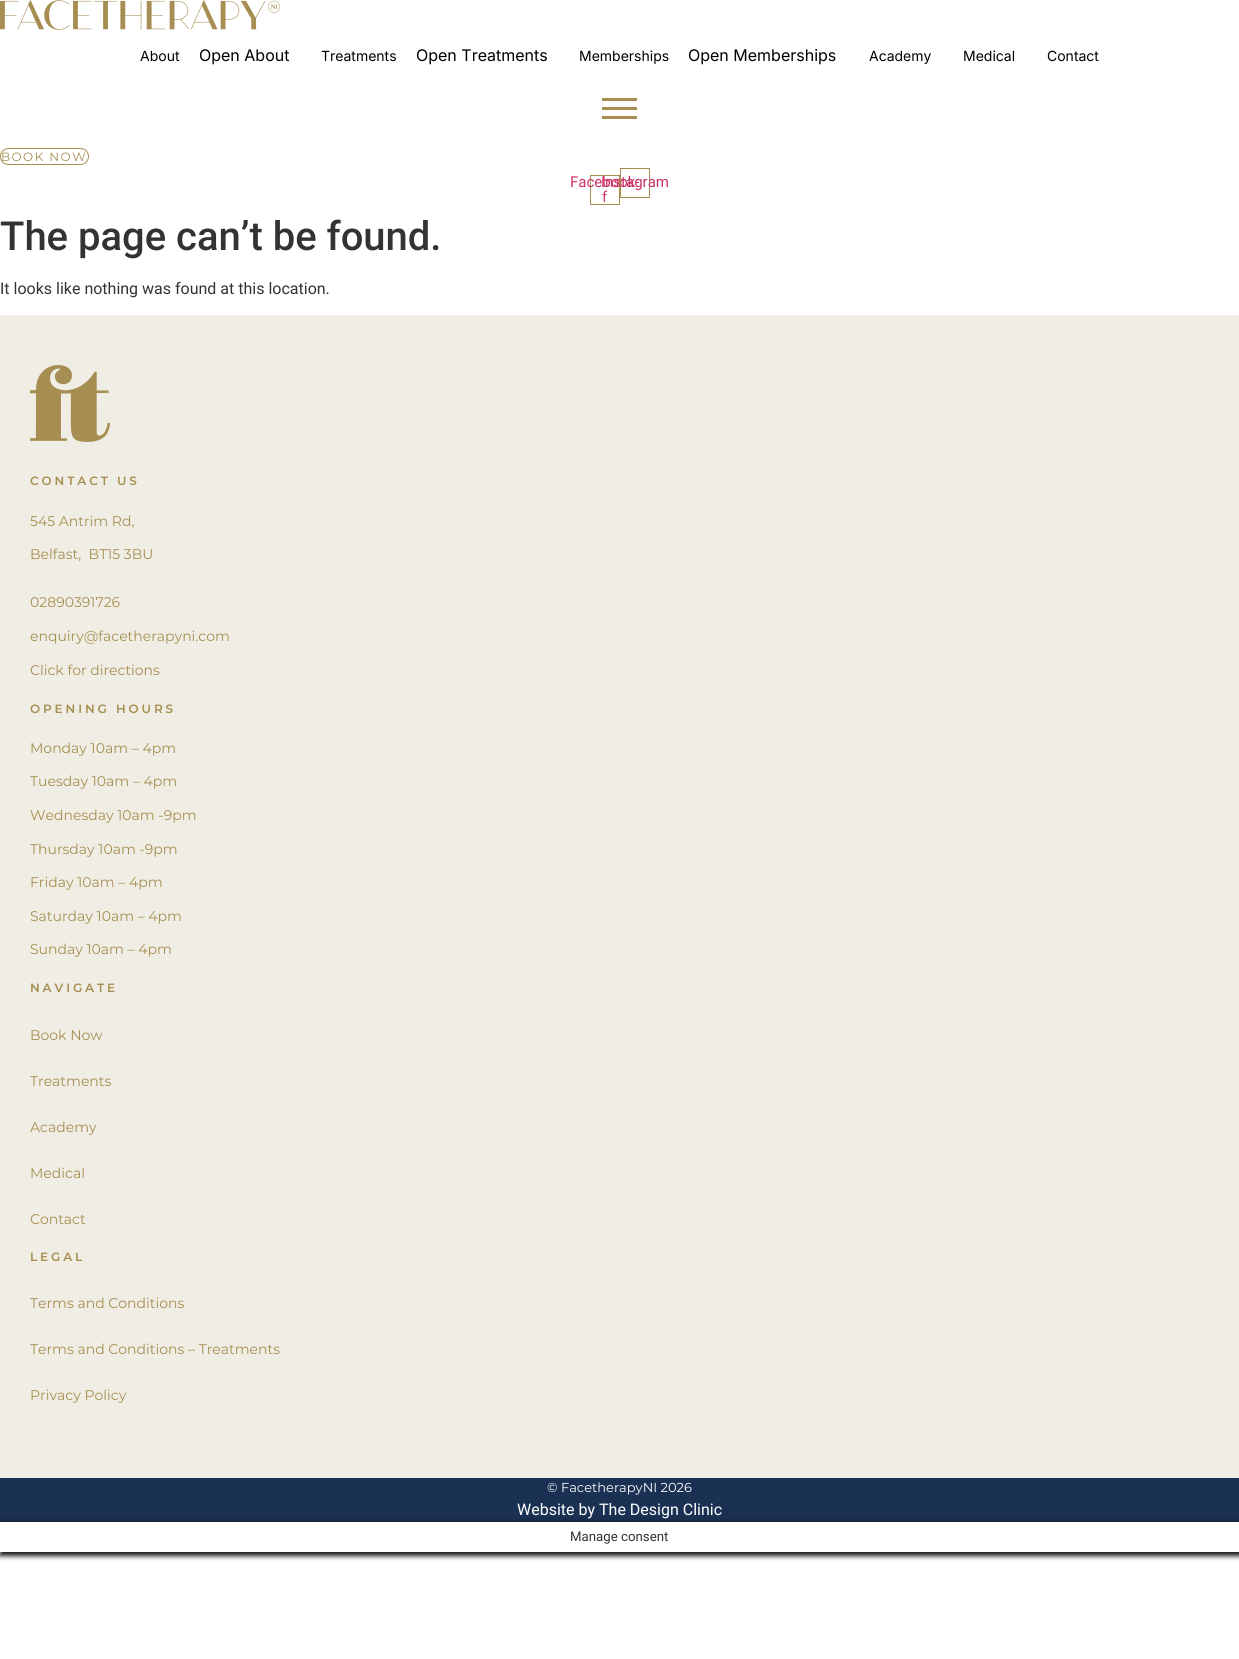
#include <cairo.h>
#include <math.h>
#include <stddef.h>


static void spaced_text(cairo_t *cr, double x, double y, const char *s, double letter, double word) {
    cairo_move_to(cr, x, y);
    while (*s) {
        char ch[5] = {0};
        int n = 0;
        do ch[n++] = *s++; while ((*s & 0xC0) == 0x80);
        cairo_show_text(cr, ch);
        cairo_rel_move_to(cr, letter + word * (*ch == ' '), 0);
    }
}

static void round_rect(cairo_t *cr, double x, double y, double w, double h, double r) {
    cairo_new_sub_path(cr);
    cairo_arc(cr, x + w - r, y + h - r, r, 0, M_PI / 2);
    cairo_arc(cr, x + r, y + h - r, r, M_PI / 2, M_PI);
    cairo_arc(cr, x + r, y + r, r, M_PI, 1.5 * M_PI);
    cairo_arc(cr, x + w - r, y + r, r, 1.5 * M_PI, 2 * M_PI);
    cairo_close_path(cr);
}

static void shadow(cairo_t *cr, double x, double y, double w, double h, double r, double blur, double alpha) {
    cairo_push_group_with_content(cr, CAIRO_CONTENT_ALPHA);
    cairo_set_operator(cr, CAIRO_OPERATOR_SOURCE);
    for (int i = 15; i >= -15 && fmin(w, h) + blur * i / 3 > 0; i -= 2) {
        double e = blur * i / 6;
        cairo_set_source_rgba(cr, 0, 0, 0, alpha * erfc((i - 1) / 8.5) / 2);
        round_rect(cr, x - e, y - e, w + 2 * e, h + 2 * e, fmax(0, fmin(r + e + blur * .6, fmin(w, h) / 2 + e)));
        cairo_fill(cr);
    }
    cairo_pattern_t *soft = cairo_pop_group(cr);
    cairo_mask(cr, soft);
    cairo_pattern_destroy(soft);
}

static void picture(cairo_t *cr, const char *path, double x, double y, double w, double h) {
    cairo_surface_t *image = cairo_image_surface_create_from_png(path);
    cairo_save(cr);
    cairo_set_source_surface(cr, image, x, y);
    cairo_rectangle(cr, x, y, w, h);
    cairo_fill(cr);
    cairo_restore(cr);
    cairo_surface_destroy(image);
}

int main(void) {
    cairo_surface_t *surface = cairo_image_surface_create(CAIRO_FORMAT_RGB24, 1239, 1659);
    cairo_t *cr = cairo_create(surface);
    cairo_font_options_t *options = cairo_font_options_create();
    cairo_font_options_set_hint_metrics(options, CAIRO_HINT_METRICS_OFF);
    cairo_font_options_set_hint_style(options, CAIRO_HINT_STYLE_NONE);
    cairo_set_font_options(cr, options);
    cairo_set_miter_limit(cr, 4);
    cairo_set_source_rgb(cr, 1, 1, 1);
    cairo_paint(cr);
    picture(cr, "img1.png", 0, 0, 280, 30);
    cairo_select_font_face(cr, "Inter", CAIRO_FONT_SLANT_NORMAL, CAIRO_FONT_WEIGHT_NORMAL);
    cairo_set_font_size(cr, 14);
    cairo_set_source_rgb(cr, 0, 0, 0);
    cairo_move_to(cr, 140, 61);
    cairo_show_text(cr, "About");
    cairo_set_font_size(cr, 16);
    cairo_move_to(cr, 199, 61);
    cairo_show_text(cr, "Open About");
    cairo_set_font_size(cr, 14);
    cairo_move_to(cr, 321, 61);
    cairo_show_text(cr, "Treatments");
    cairo_set_font_size(cr, 16);
    cairo_move_to(cr, 416, 61);
    cairo_show_text(cr, "Open Treatments");
    cairo_set_font_size(cr, 14);
    cairo_move_to(cr, 579, 61);
    cairo_show_text(cr, "Memberships");
    cairo_set_font_size(cr, 16);
    cairo_move_to(cr, 688, 61);
    cairo_show_text(cr, "Open Memberships");
    cairo_set_font_size(cr, 14);
    cairo_move_to(cr, 869, 61);
    cairo_show_text(cr, "Academy");
    cairo_move_to(cr, 963, 61);
    cairo_show_text(cr, "Medical");
    cairo_move_to(cr, 1047, 61);
    cairo_show_text(cr, "Contact");
    cairo_set_source_rgb(cr, 0.651, 0.553, 0.322);
    cairo_rectangle(cr, 602, 98, 35, 3);
    cairo_fill(cr);
    cairo_rectangle(cr, 602, 107, 35, 3);
    cairo_fill(cr);
    cairo_rectangle(cr, 602, 116, 35, 3);
    cairo_fill(cr);
    round_rect(cr, 0.5, 148.5, 88, 16, 8);
    cairo_set_source_rgb(cr, 0.651, 0.557, 0.322);
    cairo_set_line_width(cr, 1);
    cairo_stroke(cr);
    cairo_select_font_face(cr, "Montserrat", CAIRO_FONT_SLANT_NORMAL, CAIRO_FONT_WEIGHT_NORMAL);
    cairo_set_font_size(cr, 12);
    spaced_text(cr, 1, 161, "BOOK NOW", 1.5, 0);
    cairo_rectangle(cr, 590.5, 175.5, 29, 29);
    cairo_stroke(cr);
    cairo_select_font_face(cr, "Roboto", CAIRO_FONT_SLANT_NORMAL, CAIRO_FONT_WEIGHT_NORMAL);
    cairo_set_font_size(cr, 15);
    cairo_set_source_rgb(cr, 0.8, 0.2, 0.4);
    cairo_move_to(cr, 570, 187);
    cairo_show_text(cr, "Facebook-");
    cairo_move_to(cr, 602, 202);
    cairo_show_text(cr, "f");
    cairo_rectangle(cr, 620.5, 168.5, 29, 29);
    cairo_set_source_rgb(cr, 0.651, 0.557, 0.322);
    cairo_stroke(cr);
    cairo_set_source_rgb(cr, 0.8, 0.2, 0.4);
    cairo_move_to(cr, 601, 187);
    cairo_show_text(cr, "Instagram");
    cairo_select_font_face(cr, "Roboto Medium", CAIRO_FONT_SLANT_NORMAL, CAIRO_FONT_WEIGHT_NORMAL);
    cairo_set_font_size(cr, 40);
    cairo_set_source_rgb(cr, 0.2, 0.2, 0.2);
    cairo_move_to(cr, 0, 250);
    cairo_show_text(cr, "The page can’t be found.");
    cairo_select_font_face(cr, "Roboto", CAIRO_FONT_SLANT_NORMAL, CAIRO_FONT_WEIGHT_NORMAL);
    cairo_set_font_size(cr, 16);
    cairo_move_to(cr, 0, 294);
    cairo_show_text(cr, "It looks like nothing was found at this location.");
    cairo_set_source_rgb(cr, 0.941, 0.933, 0.894);
    cairo_rectangle(cr, 0, 315, 1239, 1163);
    cairo_fill(cr);
    picture(cr, "img2.png", 30, 365, 80, 77);
    cairo_select_font_face(cr, "Montserrat SemiBold", CAIRO_FONT_SLANT_NORMAL, CAIRO_FONT_WEIGHT_NORMAL);
    cairo_set_font_size(cr, 12);
    cairo_set_source_rgb(cr, 0.651, 0.557, 0.322);
    spaced_text(cr, 30, 485, "CONTACT US", 2.9, 0);
    cairo_select_font_face(cr, "Montserrat", CAIRO_FONT_SLANT_NORMAL, CAIRO_FONT_WEIGHT_NORMAL);
    cairo_set_font_size(cr, 14);
    cairo_move_to(cr, 30, 526);
    cairo_show_text(cr, "545 Antrim Rd,");
    cairo_move_to(cr, 30, 559);
    cairo_show_text(cr, "Belfast,  BT15 3BU");
    cairo_move_to(cr, 30, 607);
    cairo_show_text(cr, "02890391726");
    cairo_move_to(cr, 30, 641);
    cairo_show_text(cr, "enquiry@facetherapyni.com");
    cairo_move_to(cr, 30, 675);
    cairo_show_text(cr, "Click for directions");
    cairo_select_font_face(cr, "Montserrat SemiBold", CAIRO_FONT_SLANT_NORMAL, CAIRO_FONT_WEIGHT_NORMAL);
    cairo_set_font_size(cr, 12);
    spaced_text(cr, 30, 713, "OPENING HOURS", 2.9, 0);
    cairo_select_font_face(cr, "Montserrat", CAIRO_FONT_SLANT_NORMAL, CAIRO_FONT_WEIGHT_NORMAL);
    cairo_set_font_size(cr, 14);
    cairo_move_to(cr, 30, 753);
    cairo_show_text(cr, "Monday 10am – 4pm");
    cairo_move_to(cr, 30, 786);
    cairo_show_text(cr, "Tuesday 10am – 4pm");
    cairo_move_to(cr, 30, 820);
    cairo_show_text(cr, "Wednesday 10am -9pm");
    cairo_move_to(cr, 30, 854);
    cairo_show_text(cr, "Thursday 10am -9pm");
    cairo_move_to(cr, 30, 887);
    cairo_show_text(cr, "Friday 10am – 4pm");
    cairo_move_to(cr, 30, 921);
    cairo_show_text(cr, "Saturday 10am – 4pm");
    cairo_move_to(cr, 30, 954);
    cairo_show_text(cr, "Sunday 10am – 4pm");
    cairo_select_font_face(cr, "Montserrat SemiBold", CAIRO_FONT_SLANT_NORMAL, CAIRO_FONT_WEIGHT_NORMAL);
    cairo_set_font_size(cr, 12);
    spaced_text(cr, 30, 992, "NAVIGATE", 2.9, 0);
    cairo_select_font_face(cr, "Montserrat", CAIRO_FONT_SLANT_NORMAL, CAIRO_FONT_WEIGHT_NORMAL);
    cairo_set_font_size(cr, 14);
    cairo_move_to(cr, 30, 1040);
    cairo_show_text(cr, "Book Now");
    cairo_move_to(cr, 30, 1086);
    cairo_show_text(cr, "Treatments");
    cairo_move_to(cr, 30, 1132);
    cairo_show_text(cr, "Academy");
    cairo_move_to(cr, 30, 1178);
    cairo_show_text(cr, "Medical");
    cairo_move_to(cr, 30, 1224);
    cairo_show_text(cr, "Contact");
    cairo_select_font_face(cr, "Montserrat SemiBold", CAIRO_FONT_SLANT_NORMAL, CAIRO_FONT_WEIGHT_NORMAL);
    cairo_set_font_size(cr, 12);
    spaced_text(cr, 30, 1261, "LEGAL", 2.9, 0);
    cairo_select_font_face(cr, "Montserrat", CAIRO_FONT_SLANT_NORMAL, CAIRO_FONT_WEIGHT_NORMAL);
    cairo_set_font_size(cr, 14);
    cairo_move_to(cr, 30, 1308);
    cairo_show_text(cr, "Terms and Conditions");
    cairo_move_to(cr, 30, 1354);
    cairo_show_text(cr, "Terms and Conditions – Treatments");
    cairo_move_to(cr, 30, 1400);
    cairo_show_text(cr, "Privacy Policy");
    cairo_set_source_rgb(cr, 0.102, 0.192, 0.325);
    cairo_rectangle(cr, 0, 1478, 1239, 44);
    cairo_fill(cr);
    cairo_set_font_size(cr, 13);
    cairo_set_source_rgb(cr, 1, 1, 1);
    cairo_move_to(cr, 547, 1492);
    cairo_show_text(cr, "© FacetherapyNI 2026");
    cairo_save(cr);
    cairo_set_fill_rule(cr, CAIRO_FILL_RULE_EVEN_ODD);
    cairo_new_path(cr);
    cairo_move_to(cr, 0, 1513);
    cairo_line_to(cr, 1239, 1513);
    cairo_line_to(cr, 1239, 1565);
    cairo_line_to(cr, 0, 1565);
    cairo_close_path(cr);
    cairo_move_to(cr, 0, 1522);
    cairo_line_to(cr, 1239, 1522);
    cairo_line_to(cr, 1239, 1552);
    cairo_line_to(cr, 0, 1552);
    cairo_close_path(cr);
    cairo_clip(cr);
    cairo_set_source_rgb(cr, 0.086, 0.086, 0.086);
    shadow(cr, 0, 1522, 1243, 34, 0, 2.5, 1);
    cairo_restore(cr);
    cairo_select_font_face(cr, "Roboto", CAIRO_FONT_SLANT_NORMAL, CAIRO_FONT_WEIGHT_NORMAL);
    cairo_set_font_size(cr, 16);
    cairo_move_to(cr, 517, 1515);
    cairo_show_text(cr, "Website by The Design Clinic");
    cairo_set_font_size(cr, 13.25);
    cairo_set_source_rgb(cr, 0.2, 0.2, 0.2);
    cairo_move_to(cr, 570, 1541);
    cairo_show_text(cr, "Manage consent");
    cairo_surface_write_to_png(surface, "page.png");
    cairo_font_options_destroy(options);
    cairo_destroy(cr);
    cairo_surface_destroy(surface);
    return 0;
}
